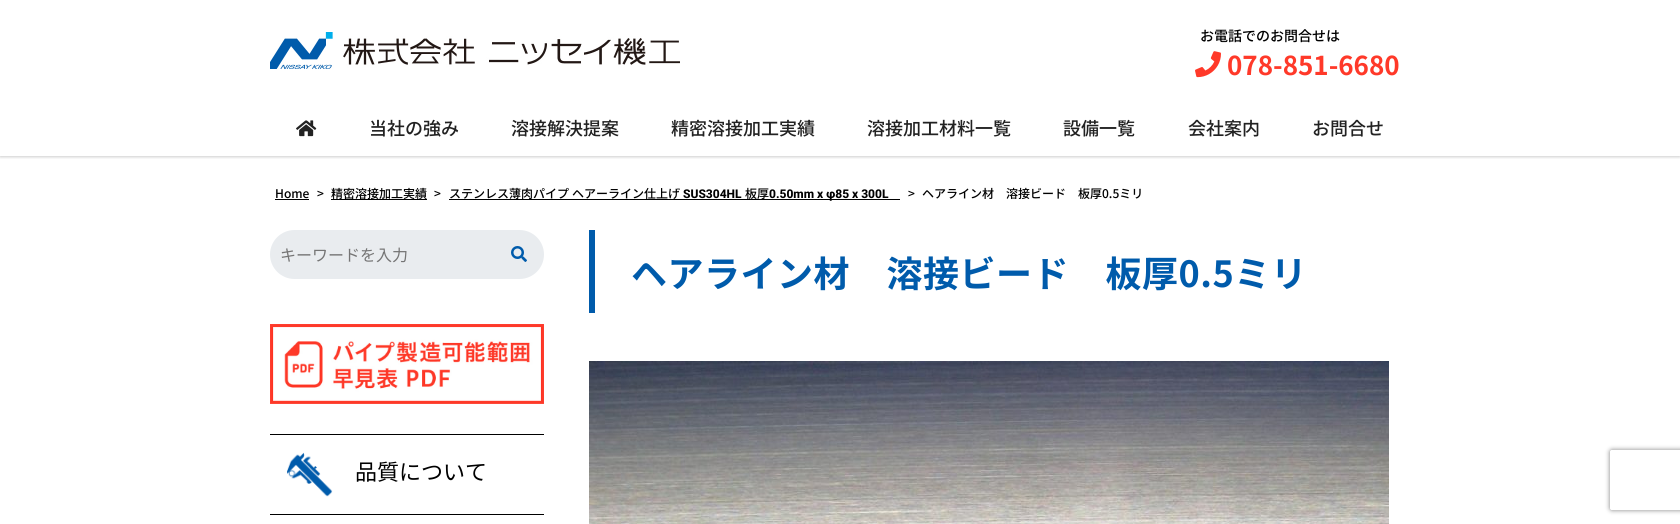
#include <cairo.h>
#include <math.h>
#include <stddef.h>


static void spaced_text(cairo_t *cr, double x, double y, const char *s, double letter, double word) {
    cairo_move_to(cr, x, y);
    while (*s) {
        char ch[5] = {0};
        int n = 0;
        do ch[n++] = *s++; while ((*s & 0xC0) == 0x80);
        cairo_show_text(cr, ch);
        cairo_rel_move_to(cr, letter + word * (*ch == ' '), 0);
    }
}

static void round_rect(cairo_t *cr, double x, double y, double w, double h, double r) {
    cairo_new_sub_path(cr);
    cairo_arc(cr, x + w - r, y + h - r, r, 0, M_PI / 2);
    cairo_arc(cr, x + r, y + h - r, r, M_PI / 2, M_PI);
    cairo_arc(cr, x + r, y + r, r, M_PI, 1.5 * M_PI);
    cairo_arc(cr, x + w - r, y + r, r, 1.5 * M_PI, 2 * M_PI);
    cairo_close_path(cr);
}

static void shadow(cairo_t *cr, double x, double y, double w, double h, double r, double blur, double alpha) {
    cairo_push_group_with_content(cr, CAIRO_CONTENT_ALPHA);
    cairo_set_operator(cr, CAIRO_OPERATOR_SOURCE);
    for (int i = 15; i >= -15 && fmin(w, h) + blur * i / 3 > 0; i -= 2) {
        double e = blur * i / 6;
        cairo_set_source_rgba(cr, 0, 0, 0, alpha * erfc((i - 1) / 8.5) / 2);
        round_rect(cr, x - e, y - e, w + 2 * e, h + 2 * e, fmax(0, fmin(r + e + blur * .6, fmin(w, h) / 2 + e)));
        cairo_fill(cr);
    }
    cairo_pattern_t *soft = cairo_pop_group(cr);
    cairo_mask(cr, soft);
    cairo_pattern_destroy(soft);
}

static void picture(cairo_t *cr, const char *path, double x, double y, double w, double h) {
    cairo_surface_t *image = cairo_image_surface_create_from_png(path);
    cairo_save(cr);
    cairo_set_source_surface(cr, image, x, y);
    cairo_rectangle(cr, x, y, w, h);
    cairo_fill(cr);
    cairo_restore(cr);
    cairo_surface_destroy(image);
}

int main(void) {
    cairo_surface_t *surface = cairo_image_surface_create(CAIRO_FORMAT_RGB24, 1680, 524);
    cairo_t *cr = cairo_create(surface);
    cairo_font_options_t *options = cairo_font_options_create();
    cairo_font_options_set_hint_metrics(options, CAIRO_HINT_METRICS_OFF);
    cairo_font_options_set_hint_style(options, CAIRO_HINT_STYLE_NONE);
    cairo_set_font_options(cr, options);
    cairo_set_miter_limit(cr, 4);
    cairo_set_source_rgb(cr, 1, 1, 1);
    cairo_paint(cr);
    cairo_save(cr);
    cairo_rectangle(cr, 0, 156, 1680, 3);
    cairo_clip(cr);
    cairo_set_source_rgb(cr, 0, 0, 0);
    shadow(cr, 0, 1, 1680, 156, 0, 1.5, 0.2);
    cairo_restore(cr);
    picture(cr, "img1.png", 270, 32, 410, 37);
    cairo_select_font_face(cr, "Noto Sans JP Medium", CAIRO_FONT_SLANT_NORMAL, CAIRO_FONT_WEIGHT_NORMAL);
    cairo_set_font_size(cr, 14);
    cairo_set_source_rgb(cr, 0, 0, 0);
    cairo_move_to(cr, 1200, 41);
    cairo_show_text(cr, "お電話でのお問合せは");
    picture(cr, "img2.png", 1195, 51, 26, 27);
    cairo_select_font_face(cr, "Noto Sans JP", CAIRO_FONT_SLANT_NORMAL, CAIRO_FONT_WEIGHT_BOLD);
    cairo_set_font_size(cr, 26);
    cairo_set_source_rgb(cr, 1, 0.224, 0.161);
    cairo_move_to(cr, 1227, 75);
    cairo_show_text(cr, "078-851-6680");
    picture(cr, "img3.png", 296, 120, 21, 17);
    cairo_select_font_face(cr, "Noto Sans JP Medium", CAIRO_FONT_SLANT_NORMAL, CAIRO_FONT_WEIGHT_NORMAL);
    cairo_set_font_size(cr, 18);
    cairo_set_source_rgb(cr, 0.133, 0.133, 0.133);
    cairo_move_to(cr, 369, 135);
    cairo_show_text(cr, "当社の強み");
    cairo_move_to(cr, 511, 135);
    cairo_show_text(cr, "溶接解決提案");
    cairo_move_to(cr, 671, 135);
    cairo_show_text(cr, "精密溶接加工実績");
    cairo_move_to(cr, 867, 135);
    cairo_show_text(cr, "溶接加工材料一覧");
    cairo_move_to(cr, 1063, 135);
    cairo_show_text(cr, "設備一覧");
    cairo_move_to(cr, 1188, 135);
    cairo_show_text(cr, "会社案内");
    cairo_move_to(cr, 1312, 135);
    cairo_show_text(cr, "お問合せ");
    cairo_set_font_size(cr, 12);
    cairo_set_source_rgb(cr, 0, 0, 0);
    cairo_move_to(cr, 275, 198);
    cairo_show_text(cr, "Home");
    cairo_rectangle(cr, 275, 199, 34, 1);
    cairo_fill(cr);
    cairo_move_to(cr, 317, 198);
    cairo_show_text(cr, ">");
    cairo_rectangle(cr, 331, 199, 96, 1);
    cairo_fill(cr);
    cairo_move_to(cr, 331, 198);
    cairo_show_text(cr, "精密溶接加工実績");
    cairo_move_to(cr, 434, 198);
    cairo_show_text(cr, ">");
    cairo_rectangle(cr, 449, 199, 451, 1);
    cairo_fill(cr);
    cairo_move_to(cr, 449, 198);
    cairo_show_text(cr, "ステンレス薄肉パイプ");
    cairo_move_to(cr, 572, 198);
    cairo_show_text(cr, "ヘアーライン仕上げ");
    cairo_select_font_face(cr, "Roboto ExtraBold", CAIRO_FONT_SLANT_NORMAL, CAIRO_FONT_WEIGHT_NORMAL);
    cairo_move_to(cr, 683, 198);
    cairo_show_text(cr, "SUS304HL");
    cairo_select_font_face(cr, "Noto Sans JP Medium", CAIRO_FONT_SLANT_NORMAL, CAIRO_FONT_WEIGHT_NORMAL);
    cairo_move_to(cr, 745, 198);
    cairo_show_text(cr, "板厚");
    cairo_select_font_face(cr, "Roboto ExtraBold", CAIRO_FONT_SLANT_NORMAL, CAIRO_FONT_WEIGHT_NORMAL);
    cairo_move_to(cr, 769, 198);
    cairo_show_text(cr, "0.50mm x φ85 x 300L");
    cairo_select_font_face(cr, "Noto Sans JP Medium", CAIRO_FONT_SLANT_NORMAL, CAIRO_FONT_WEIGHT_NORMAL);
    cairo_move_to(cr, 908, 198);
    cairo_show_text(cr, ">");
    cairo_move_to(cr, 922, 198);
    cairo_show_text(cr, "ヘアライン材　溶接ビード　板厚0.5ミリ");
    cairo_set_source_rgb(cr, 0.914, 0.925, 0.937);
    cairo_new_path(cr);
    cairo_move_to(cr, 294.5, 230);
    cairo_line_to(cr, 494, 230);
    cairo_line_to(cr, 494, 279);
    cairo_line_to(cr, 294.5, 279);
    cairo_curve_to(cr, 281, 279, 270, 268, 270, 254.5);
    cairo_curve_to(cr, 270, 241, 281, 230, 294.5, 230);
    cairo_close_path(cr);
    cairo_fill(cr);
    cairo_select_font_face(cr, "Noto Sans JP", CAIRO_FONT_SLANT_NORMAL, CAIRO_FONT_WEIGHT_NORMAL);
    cairo_set_font_size(cr, 16);
    cairo_set_source_rgb(cr, 0.459, 0.459, 0.459);
    cairo_move_to(cr, 280, 261);
    cairo_show_text(cr, "キーワードを入力");
    cairo_set_source_rgb(cr, 0.914, 0.925, 0.937);
    cairo_new_path(cr);
    cairo_move_to(cr, 494, 230);
    cairo_line_to(cr, 519.5, 230);
    cairo_curve_to(cr, 533, 230, 544, 241, 544, 254.5);
    cairo_curve_to(cr, 544, 268, 533, 279, 519.5, 279);
    cairo_line_to(cr, 494, 279);
    cairo_close_path(cr);
    cairo_fill(cr);
    picture(cr, "img4.png", 511, 246, 16, 16);
    picture(cr, "img5.png", 270, 324, 274, 80);
    cairo_set_source_rgb(cr, 0, 0, 0);
    cairo_rectangle(cr, 270, 434, 274, 1);
    cairo_fill(cr);
    cairo_rectangle(cr, 270, 514, 274, 1);
    cairo_fill(cr);
    picture(cr, "img6.png", 287, 452, 46, 45);
    cairo_set_font_size(cr, 22);
    cairo_move_to(cr, 355, 480);
    cairo_show_text(cr, "品質について");
    cairo_set_source_rgb(cr, 0, 0.357, 0.671);
    cairo_rectangle(cr, 589, 230, 6, 83);
    cairo_fill(cr);
    cairo_select_font_face(cr, "Noto Sans JP", CAIRO_FONT_SLANT_NORMAL, CAIRO_FONT_WEIGHT_BOLD);
    cairo_set_font_size(cr, 36);
    spaced_text(cr, 631, 287, "ヘアライン材　溶接ビード　板厚0.5ミリ", 0.5, 0);
    picture(cr, "img7.png", 589, 361, 800, 163);
    cairo_save(cr);
    cairo_set_fill_rule(cr, CAIRO_FILL_RULE_EVEN_ODD);
    cairo_new_path(cr);
    cairo_move_to(cr, 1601, 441);
    cairo_line_to(cr, 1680, 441);
    cairo_line_to(cr, 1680, 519);
    cairo_line_to(cr, 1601, 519);
    cairo_close_path(cr);
    cairo_move_to(cr, 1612, 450);
    cairo_line_to(cr, 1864, 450);
    cairo_curve_to(cr, 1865, 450, 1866, 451, 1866, 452);
    cairo_line_to(cr, 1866, 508);
    cairo_curve_to(cr, 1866, 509, 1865, 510, 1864, 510);
    cairo_line_to(cr, 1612, 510);
    cairo_curve_to(cr, 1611, 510, 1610, 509, 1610, 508);
    cairo_line_to(cr, 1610, 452);
    cairo_curve_to(cr, 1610, 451, 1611, 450, 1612, 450);
    cairo_close_path(cr);
    cairo_clip(cr);
    cairo_set_source_rgb(cr, 0.502, 0.502, 0.502);
    shadow(cr, 1610, 450, 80, 60, 2, 2.5, 1);
    cairo_restore(cr);
    cairo_surface_write_to_png(surface, "page.png");
    cairo_font_options_destroy(options);
    cairo_destroy(cr);
    cairo_surface_destroy(surface);
    return 0;
}
